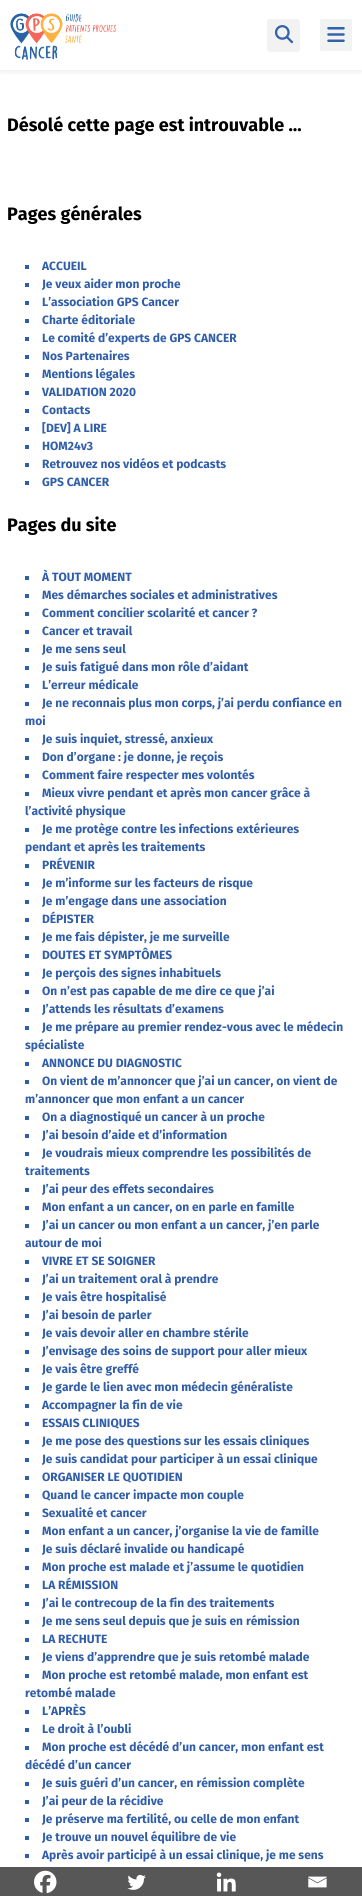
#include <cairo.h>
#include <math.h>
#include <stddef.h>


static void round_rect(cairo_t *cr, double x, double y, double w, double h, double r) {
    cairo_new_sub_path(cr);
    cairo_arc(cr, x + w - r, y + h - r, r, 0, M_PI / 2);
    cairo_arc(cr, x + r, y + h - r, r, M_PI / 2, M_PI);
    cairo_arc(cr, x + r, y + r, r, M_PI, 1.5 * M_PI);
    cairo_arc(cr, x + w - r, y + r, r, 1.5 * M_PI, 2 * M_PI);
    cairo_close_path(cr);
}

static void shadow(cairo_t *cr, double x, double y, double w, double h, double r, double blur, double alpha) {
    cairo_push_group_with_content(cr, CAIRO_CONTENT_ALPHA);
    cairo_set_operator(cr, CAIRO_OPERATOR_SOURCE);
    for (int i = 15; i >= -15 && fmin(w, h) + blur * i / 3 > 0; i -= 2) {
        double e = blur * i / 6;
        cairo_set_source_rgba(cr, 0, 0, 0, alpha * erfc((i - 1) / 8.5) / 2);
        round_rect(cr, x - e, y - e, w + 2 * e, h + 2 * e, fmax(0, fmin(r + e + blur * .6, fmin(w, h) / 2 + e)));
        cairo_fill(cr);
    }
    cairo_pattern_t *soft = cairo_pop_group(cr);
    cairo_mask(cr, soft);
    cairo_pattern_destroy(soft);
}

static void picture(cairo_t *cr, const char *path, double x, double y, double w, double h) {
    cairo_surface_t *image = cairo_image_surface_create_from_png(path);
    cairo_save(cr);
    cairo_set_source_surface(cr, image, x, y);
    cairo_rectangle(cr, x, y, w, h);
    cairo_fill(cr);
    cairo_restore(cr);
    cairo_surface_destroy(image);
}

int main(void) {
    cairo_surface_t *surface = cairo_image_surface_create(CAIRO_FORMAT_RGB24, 362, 1896);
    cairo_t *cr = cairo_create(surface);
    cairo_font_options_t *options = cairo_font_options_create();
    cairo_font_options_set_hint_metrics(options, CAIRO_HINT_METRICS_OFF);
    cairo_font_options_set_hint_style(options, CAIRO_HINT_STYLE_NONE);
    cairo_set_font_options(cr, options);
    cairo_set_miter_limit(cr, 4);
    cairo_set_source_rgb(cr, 1, 1, 1);
    cairo_paint(cr);
    cairo_save(cr);
    cairo_rectangle(cr, 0, 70, 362, 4);
    cairo_clip(cr);
    cairo_set_source_rgb(cr, 0, 0, 0);
    shadow(cr, 0, 0, 362, 70, 0, 5, 0.1);
    cairo_restore(cr);
    picture(cr, "img1.png", 10, 13, 106, 47);
    cairo_set_source_rgb(cr, 0.949, 0.949, 0.949);
    round_rect(cr, 267, 19, 33, 33, 3);
    cairo_fill(cr);
    picture(cr, "img2.png", 274, 25, 19, 19);
    cairo_set_source_rgb(cr, 0.945, 0.949, 0.949);
    round_rect(cr, 320, 19, 32, 32, 2);
    cairo_fill(cr);
    picture(cr, "img3.png", 327, 27, 18, 15);
    cairo_select_font_face(cr, "Fira Sans", CAIRO_FONT_SLANT_NORMAL, CAIRO_FONT_WEIGHT_BOLD);
    cairo_set_font_size(cr, 18);
    cairo_set_source_rgb(cr, 0, 0, 0);
    cairo_move_to(cr, 7, 131);
    cairo_show_text(cr, "Désolé cette page est introuvable …");
    cairo_move_to(cr, 7, 220);
    cairo_show_text(cr, "Pages générales");
    cairo_set_source_rgb(cr, 0.188, 0.369, 0.659);
    cairo_rectangle(cr, 25, 265, 4, 4);
    cairo_fill(cr);
    cairo_set_font_size(cr, 12);
    cairo_move_to(cr, 42, 270);
    cairo_show_text(cr, "ACCUEIL");
    cairo_rectangle(cr, 25, 283, 4, 4);
    cairo_fill(cr);
    cairo_move_to(cr, 42, 288);
    cairo_show_text(cr, "Je veux aider mon proche");
    cairo_rectangle(cr, 25, 301, 4, 4);
    cairo_fill(cr);
    cairo_move_to(cr, 42, 306);
    cairo_show_text(cr, "L’association GPS Cancer");
    cairo_rectangle(cr, 25, 319, 4, 4);
    cairo_fill(cr);
    cairo_move_to(cr, 42, 324);
    cairo_show_text(cr, "Charte éditoriale");
    cairo_rectangle(cr, 25, 337, 4, 4);
    cairo_fill(cr);
    cairo_move_to(cr, 42, 342);
    cairo_show_text(cr, "Le comité d’experts de GPS CANCER");
    cairo_rectangle(cr, 25, 355, 4, 4);
    cairo_fill(cr);
    cairo_move_to(cr, 42, 360);
    cairo_show_text(cr, "Nos Partenaires");
    cairo_rectangle(cr, 25, 373, 4, 4);
    cairo_fill(cr);
    cairo_move_to(cr, 42, 378);
    cairo_show_text(cr, "Mentions légales");
    cairo_rectangle(cr, 25, 391, 4, 4);
    cairo_fill(cr);
    cairo_move_to(cr, 42, 396);
    cairo_show_text(cr, "VALIDATION 2020");
    cairo_rectangle(cr, 25, 409, 4, 4);
    cairo_fill(cr);
    cairo_move_to(cr, 42, 414);
    cairo_show_text(cr, "Contacts");
    cairo_rectangle(cr, 25, 427, 4, 4);
    cairo_fill(cr);
    cairo_move_to(cr, 42, 432);
    cairo_show_text(cr, "[DEV] A LIRE");
    cairo_rectangle(cr, 25, 445, 4, 4);
    cairo_fill(cr);
    cairo_move_to(cr, 42, 450);
    cairo_show_text(cr, "HOM24v3");
    cairo_rectangle(cr, 25, 463, 4, 4);
    cairo_fill(cr);
    cairo_move_to(cr, 42, 468);
    cairo_show_text(cr, "Retrouvez nos vidéos et podcasts");
    cairo_rectangle(cr, 25, 481, 4, 4);
    cairo_fill(cr);
    cairo_move_to(cr, 42, 486);
    cairo_show_text(cr, "GPS CANCER");
    cairo_set_font_size(cr, 18);
    cairo_set_source_rgb(cr, 0, 0, 0);
    cairo_move_to(cr, 7, 531);
    cairo_show_text(cr, "Pages du site");
    cairo_set_source_rgb(cr, 0.188, 0.369, 0.659);
    cairo_rectangle(cr, 25, 576, 4, 4);
    cairo_fill(cr);
    cairo_set_font_size(cr, 12);
    cairo_move_to(cr, 42, 581);
    cairo_show_text(cr, "À TOUT MOMENT");
    cairo_rectangle(cr, 25, 594, 4, 4);
    cairo_fill(cr);
    cairo_move_to(cr, 42, 599);
    cairo_show_text(cr, "Mes démarches sociales et administratives");
    cairo_rectangle(cr, 25, 612, 4, 4);
    cairo_fill(cr);
    cairo_move_to(cr, 42, 617);
    cairo_show_text(cr, "Comment concilier scolarité et cancer ?");
    cairo_rectangle(cr, 25, 630, 4, 4);
    cairo_fill(cr);
    cairo_move_to(cr, 42, 635);
    cairo_show_text(cr, "Cancer et travail");
    cairo_rectangle(cr, 25, 648, 4, 4);
    cairo_fill(cr);
    cairo_move_to(cr, 42, 653);
    cairo_show_text(cr, "Je me sens seul");
    cairo_rectangle(cr, 25, 666, 4, 4);
    cairo_fill(cr);
    cairo_move_to(cr, 42, 671);
    cairo_show_text(cr, "Je suis fatigué dans mon rôle d’aidant");
    cairo_rectangle(cr, 25, 684, 4, 4);
    cairo_fill(cr);
    cairo_move_to(cr, 42, 689);
    cairo_show_text(cr, "L’erreur médicale");
    cairo_rectangle(cr, 25, 702, 4, 4);
    cairo_fill(cr);
    cairo_move_to(cr, 42, 707);
    cairo_show_text(cr, "Je ne reconnais plus mon corps, j’ai perdu confiance en");
    cairo_move_to(cr, 25, 725);
    cairo_show_text(cr, "moi");
    cairo_rectangle(cr, 25, 738, 4, 4);
    cairo_fill(cr);
    cairo_move_to(cr, 42, 743);
    cairo_show_text(cr, "Je suis inquiet, stressé, anxieux");
    cairo_rectangle(cr, 25, 756, 4, 4);
    cairo_fill(cr);
    cairo_move_to(cr, 42, 761);
    cairo_show_text(cr, "Don d’organe : je donne, je reçois");
    cairo_rectangle(cr, 25, 774, 4, 4);
    cairo_fill(cr);
    cairo_move_to(cr, 42, 779);
    cairo_show_text(cr, "Comment faire respecter mes volontés");
    cairo_rectangle(cr, 25, 792, 4, 4);
    cairo_fill(cr);
    cairo_move_to(cr, 42, 797);
    cairo_show_text(cr, "Mieux vivre pendant et après mon cancer grâce à");
    cairo_move_to(cr, 25, 815);
    cairo_show_text(cr, "l’activité physique");
    cairo_rectangle(cr, 25, 828, 4, 4);
    cairo_fill(cr);
    cairo_move_to(cr, 42, 833);
    cairo_show_text(cr, "Je me protège contre les infections extérieures");
    cairo_move_to(cr, 25, 851);
    cairo_show_text(cr, "pendant et après les traitements");
    cairo_rectangle(cr, 25, 864, 4, 4);
    cairo_fill(cr);
    cairo_move_to(cr, 42, 869);
    cairo_show_text(cr, "PRÉVENIR");
    cairo_rectangle(cr, 25, 882, 4, 4);
    cairo_fill(cr);
    cairo_move_to(cr, 42, 887);
    cairo_show_text(cr, "Je m’informe sur les facteurs de risque");
    cairo_rectangle(cr, 25, 900, 4, 4);
    cairo_fill(cr);
    cairo_move_to(cr, 42, 905);
    cairo_show_text(cr, "Je m’engage dans une association");
    cairo_rectangle(cr, 25, 918, 4, 4);
    cairo_fill(cr);
    cairo_move_to(cr, 42, 923);
    cairo_show_text(cr, "DÉPISTER");
    cairo_rectangle(cr, 25, 936, 4, 4);
    cairo_fill(cr);
    cairo_move_to(cr, 42, 941);
    cairo_show_text(cr, "Je me fais dépister, je me surveille");
    cairo_rectangle(cr, 25, 954, 4, 4);
    cairo_fill(cr);
    cairo_move_to(cr, 42, 959);
    cairo_show_text(cr, "DOUTES ET SYMPTÔMES");
    cairo_rectangle(cr, 25, 972, 4, 4);
    cairo_fill(cr);
    cairo_move_to(cr, 42, 977);
    cairo_show_text(cr, "Je perçois des signes inhabituels");
    cairo_rectangle(cr, 25, 990, 4, 4);
    cairo_fill(cr);
    cairo_move_to(cr, 42, 995);
    cairo_show_text(cr, "On n’est pas capable de me dire ce que j’ai");
    cairo_rectangle(cr, 25, 1008, 4, 4);
    cairo_fill(cr);
    cairo_move_to(cr, 42, 1013);
    cairo_show_text(cr, "J’attends les résultats d’examens");
    cairo_rectangle(cr, 25, 1026, 4, 4);
    cairo_fill(cr);
    cairo_move_to(cr, 42, 1031);
    cairo_show_text(cr, "Je me prépare au premier rendez-vous avec le médecin");
    cairo_move_to(cr, 25, 1049);
    cairo_show_text(cr, "spécialiste");
    cairo_rectangle(cr, 25, 1062, 4, 4);
    cairo_fill(cr);
    cairo_move_to(cr, 42, 1067);
    cairo_show_text(cr, "ANNONCE DU DIAGNOSTIC");
    cairo_rectangle(cr, 25, 1080, 4, 4);
    cairo_fill(cr);
    cairo_move_to(cr, 42, 1085);
    cairo_show_text(cr, "On vient de m’annoncer que j’ai un cancer, on vient de");
    cairo_move_to(cr, 25, 1103);
    cairo_show_text(cr, "m’annoncer que mon enfant a un cancer");
    cairo_rectangle(cr, 25, 1116, 4, 4);
    cairo_fill(cr);
    cairo_move_to(cr, 42, 1121);
    cairo_show_text(cr, "On a diagnostiqué un cancer à un proche");
    cairo_rectangle(cr, 25, 1134, 4, 4);
    cairo_fill(cr);
    cairo_move_to(cr, 42, 1139);
    cairo_show_text(cr, "J’ai besoin d’aide et d’information");
    cairo_rectangle(cr, 25, 1152, 4, 4);
    cairo_fill(cr);
    cairo_move_to(cr, 42, 1157);
    cairo_show_text(cr, "Je voudrais mieux comprendre les possibilités de");
    cairo_move_to(cr, 25, 1175);
    cairo_show_text(cr, "traitements");
    cairo_rectangle(cr, 25, 1188, 4, 4);
    cairo_fill(cr);
    cairo_move_to(cr, 42, 1193);
    cairo_show_text(cr, "J’ai peur des effets secondaires");
    cairo_rectangle(cr, 25, 1206, 4, 4);
    cairo_fill(cr);
    cairo_move_to(cr, 42, 1211);
    cairo_show_text(cr, "Mon enfant a un cancer, on en parle en famille");
    cairo_rectangle(cr, 25, 1224, 4, 4);
    cairo_fill(cr);
    cairo_move_to(cr, 42, 1229);
    cairo_show_text(cr, "J’ai un cancer ou mon enfant a un cancer, j’en parle");
    cairo_move_to(cr, 25, 1247);
    cairo_show_text(cr, "autour de moi");
    cairo_rectangle(cr, 25, 1260, 4, 4);
    cairo_fill(cr);
    cairo_move_to(cr, 42, 1265);
    cairo_show_text(cr, "VIVRE ET SE SOIGNER");
    cairo_rectangle(cr, 25, 1278, 4, 4);
    cairo_fill(cr);
    cairo_move_to(cr, 42, 1283);
    cairo_show_text(cr, "J’ai un traitement oral à prendre");
    cairo_rectangle(cr, 25, 1296, 4, 4);
    cairo_fill(cr);
    cairo_move_to(cr, 42, 1301);
    cairo_show_text(cr, "Je vais être hospitalisé");
    cairo_rectangle(cr, 25, 1314, 4, 4);
    cairo_fill(cr);
    cairo_move_to(cr, 42, 1319);
    cairo_show_text(cr, "J’ai besoin de parler");
    cairo_rectangle(cr, 25, 1332, 4, 4);
    cairo_fill(cr);
    cairo_move_to(cr, 42, 1337);
    cairo_show_text(cr, "Je vais devoir aller en chambre stérile");
    cairo_rectangle(cr, 25, 1350, 4, 4);
    cairo_fill(cr);
    cairo_move_to(cr, 42, 1355);
    cairo_show_text(cr, "J’envisage des soins de support pour aller mieux");
    cairo_rectangle(cr, 25, 1368, 4, 4);
    cairo_fill(cr);
    cairo_move_to(cr, 42, 1373);
    cairo_show_text(cr, "Je vais être greffé");
    cairo_rectangle(cr, 25, 1386, 4, 4);
    cairo_fill(cr);
    cairo_move_to(cr, 42, 1391);
    cairo_show_text(cr, "Je garde le lien avec mon médecin généraliste");
    cairo_rectangle(cr, 25, 1404, 4, 4);
    cairo_fill(cr);
    cairo_move_to(cr, 42, 1409);
    cairo_show_text(cr, "Accompagner la fin de vie");
    cairo_rectangle(cr, 25, 1422, 4, 4);
    cairo_fill(cr);
    cairo_move_to(cr, 42, 1427);
    cairo_show_text(cr, "ESSAIS CLINIQUES");
    cairo_rectangle(cr, 25, 1440, 4, 4);
    cairo_fill(cr);
    cairo_move_to(cr, 42, 1445);
    cairo_show_text(cr, "Je me pose des questions sur les essais cliniques");
    cairo_rectangle(cr, 25, 1458, 4, 4);
    cairo_fill(cr);
    cairo_move_to(cr, 42, 1463);
    cairo_show_text(cr, "Je suis candidat pour participer à un essai clinique");
    cairo_rectangle(cr, 25, 1476, 4, 4);
    cairo_fill(cr);
    cairo_move_to(cr, 42, 1481);
    cairo_show_text(cr, "ORGANISER LE QUOTIDIEN");
    cairo_rectangle(cr, 25, 1494, 4, 4);
    cairo_fill(cr);
    cairo_move_to(cr, 42, 1499);
    cairo_show_text(cr, "Quand le cancer impacte mon couple");
    cairo_rectangle(cr, 25, 1512, 4, 4);
    cairo_fill(cr);
    cairo_move_to(cr, 42, 1517);
    cairo_show_text(cr, "Sexualité et cancer");
    cairo_rectangle(cr, 25, 1530, 4, 4);
    cairo_fill(cr);
    cairo_move_to(cr, 42, 1535);
    cairo_show_text(cr, "Mon enfant a un cancer, j’organise la vie de famille");
    cairo_rectangle(cr, 25, 1548, 4, 4);
    cairo_fill(cr);
    cairo_move_to(cr, 42, 1553);
    cairo_show_text(cr, "Je suis déclaré invalide ou handicapé");
    cairo_rectangle(cr, 25, 1566, 4, 4);
    cairo_fill(cr);
    cairo_move_to(cr, 42, 1571);
    cairo_show_text(cr, "Mon proche est malade et j’assume le quotidien");
    cairo_rectangle(cr, 25, 1584, 4, 4);
    cairo_fill(cr);
    cairo_move_to(cr, 42, 1589);
    cairo_show_text(cr, "LA RÉMISSION");
    cairo_rectangle(cr, 25, 1602, 4, 4);
    cairo_fill(cr);
    cairo_move_to(cr, 42, 1607);
    cairo_show_text(cr, "J’ai le contrecoup de la fin des traitements");
    cairo_rectangle(cr, 25, 1620, 4, 4);
    cairo_fill(cr);
    cairo_move_to(cr, 42, 1625);
    cairo_show_text(cr, "Je me sens seul depuis que je suis en rémission");
    cairo_rectangle(cr, 25, 1638, 4, 4);
    cairo_fill(cr);
    cairo_move_to(cr, 42, 1643);
    cairo_show_text(cr, "LA RECHUTE");
    cairo_rectangle(cr, 25, 1656, 4, 4);
    cairo_fill(cr);
    cairo_move_to(cr, 42, 1661);
    cairo_show_text(cr, "Je viens d’apprendre que je suis retombé malade");
    cairo_rectangle(cr, 25, 1674, 4, 4);
    cairo_fill(cr);
    cairo_move_to(cr, 42, 1679);
    cairo_show_text(cr, "Mon proche est retombé malade, mon enfant est");
    cairo_move_to(cr, 25, 1697);
    cairo_show_text(cr, "retombé malade");
    cairo_rectangle(cr, 25, 1710, 4, 4);
    cairo_fill(cr);
    cairo_move_to(cr, 42, 1715);
    cairo_show_text(cr, "L’APRÈS");
    cairo_rectangle(cr, 25, 1728, 4, 4);
    cairo_fill(cr);
    cairo_move_to(cr, 42, 1733);
    cairo_show_text(cr, "Le droit à l’oubli");
    cairo_rectangle(cr, 25, 1746, 4, 4);
    cairo_fill(cr);
    cairo_move_to(cr, 42, 1751);
    cairo_show_text(cr, "Mon proche est décédé d’un cancer, mon enfant est");
    cairo_move_to(cr, 25, 1769);
    cairo_show_text(cr, "décédé d’un cancer");
    cairo_rectangle(cr, 25, 1782, 4, 4);
    cairo_fill(cr);
    cairo_move_to(cr, 42, 1787);
    cairo_show_text(cr, "Je suis guéri d’un cancer, en rémission complète");
    cairo_rectangle(cr, 25, 1800, 4, 4);
    cairo_fill(cr);
    cairo_move_to(cr, 42, 1805);
    cairo_show_text(cr, "J’ai peur de la récidive");
    cairo_rectangle(cr, 25, 1818, 4, 4);
    cairo_fill(cr);
    cairo_move_to(cr, 42, 1823);
    cairo_show_text(cr, "Je préserve ma fertilité, ou celle de mon enfant");
    cairo_rectangle(cr, 25, 1836, 4, 4);
    cairo_fill(cr);
    cairo_move_to(cr, 42, 1841);
    cairo_show_text(cr, "Je trouve un nouvel équilibre de vie");
    cairo_rectangle(cr, 25, 1854, 4, 4);
    cairo_fill(cr);
    cairo_move_to(cr, 42, 1859);
    cairo_show_text(cr, "Après avoir participé à un essai clinique, je me sens");
    cairo_set_source_rgb(cr, 0.341, 0.341, 0.341);
    cairo_rectangle(cr, 0, 1867, 362, 29);
    cairo_fill(cr);
    picture(cr, "img4.png", 34, 1870, 23, 24);
    picture(cr, "img5.png", 127, 1874, 19, 16);
    picture(cr, "img6.png", 216, 1872, 20, 20);
    picture(cr, "img7.png", 308, 1876, 19, 12);
    cairo_surface_write_to_png(surface, "page.png");
    cairo_font_options_destroy(options);
    cairo_destroy(cr);
    cairo_surface_destroy(surface);
    return 0;
}
